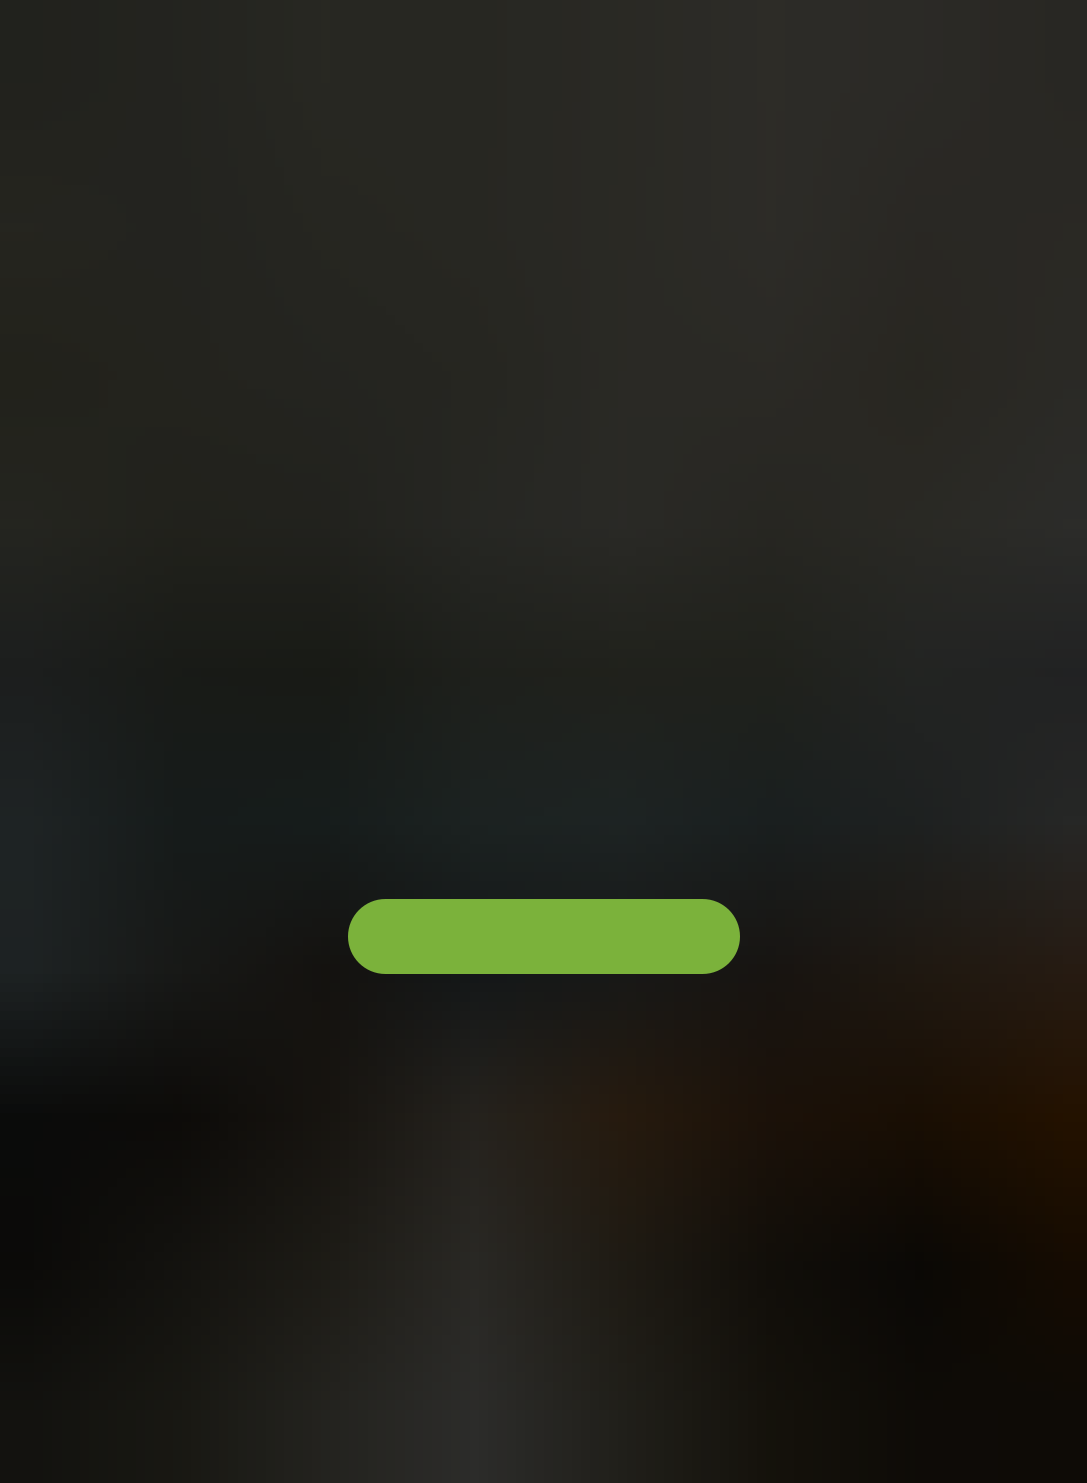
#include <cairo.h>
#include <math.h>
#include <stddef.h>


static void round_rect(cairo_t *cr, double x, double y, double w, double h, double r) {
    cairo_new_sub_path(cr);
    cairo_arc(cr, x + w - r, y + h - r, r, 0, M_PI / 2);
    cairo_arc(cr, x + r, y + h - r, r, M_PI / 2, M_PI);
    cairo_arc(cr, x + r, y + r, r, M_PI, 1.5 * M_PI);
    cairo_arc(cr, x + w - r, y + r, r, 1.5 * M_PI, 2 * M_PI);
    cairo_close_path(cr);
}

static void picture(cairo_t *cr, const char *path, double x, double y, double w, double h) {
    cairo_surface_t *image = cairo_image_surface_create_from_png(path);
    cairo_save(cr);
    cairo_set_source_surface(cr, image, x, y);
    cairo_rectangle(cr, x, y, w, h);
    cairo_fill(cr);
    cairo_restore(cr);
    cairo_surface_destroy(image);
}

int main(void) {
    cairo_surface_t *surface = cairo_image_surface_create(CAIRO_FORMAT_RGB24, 1087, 1483);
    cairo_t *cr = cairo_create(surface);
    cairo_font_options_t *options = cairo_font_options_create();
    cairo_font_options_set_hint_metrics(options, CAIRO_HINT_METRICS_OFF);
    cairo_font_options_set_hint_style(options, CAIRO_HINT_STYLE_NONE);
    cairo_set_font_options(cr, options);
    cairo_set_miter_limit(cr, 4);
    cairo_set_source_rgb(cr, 1, 1, 1);
    cairo_paint(cr);
    picture(cr, "img1.png", 0, 0, 1087, 1483);
    cairo_set_source_rgb(cr, 0.482, 0.698, 0.231);
    round_rect(cr, 348, 899, 392, 75, 37.5);
    cairo_fill(cr);
    cairo_surface_write_to_png(surface, "page.png");
    cairo_font_options_destroy(options);
    cairo_destroy(cr);
    cairo_surface_destroy(surface);
    return 0;
}
